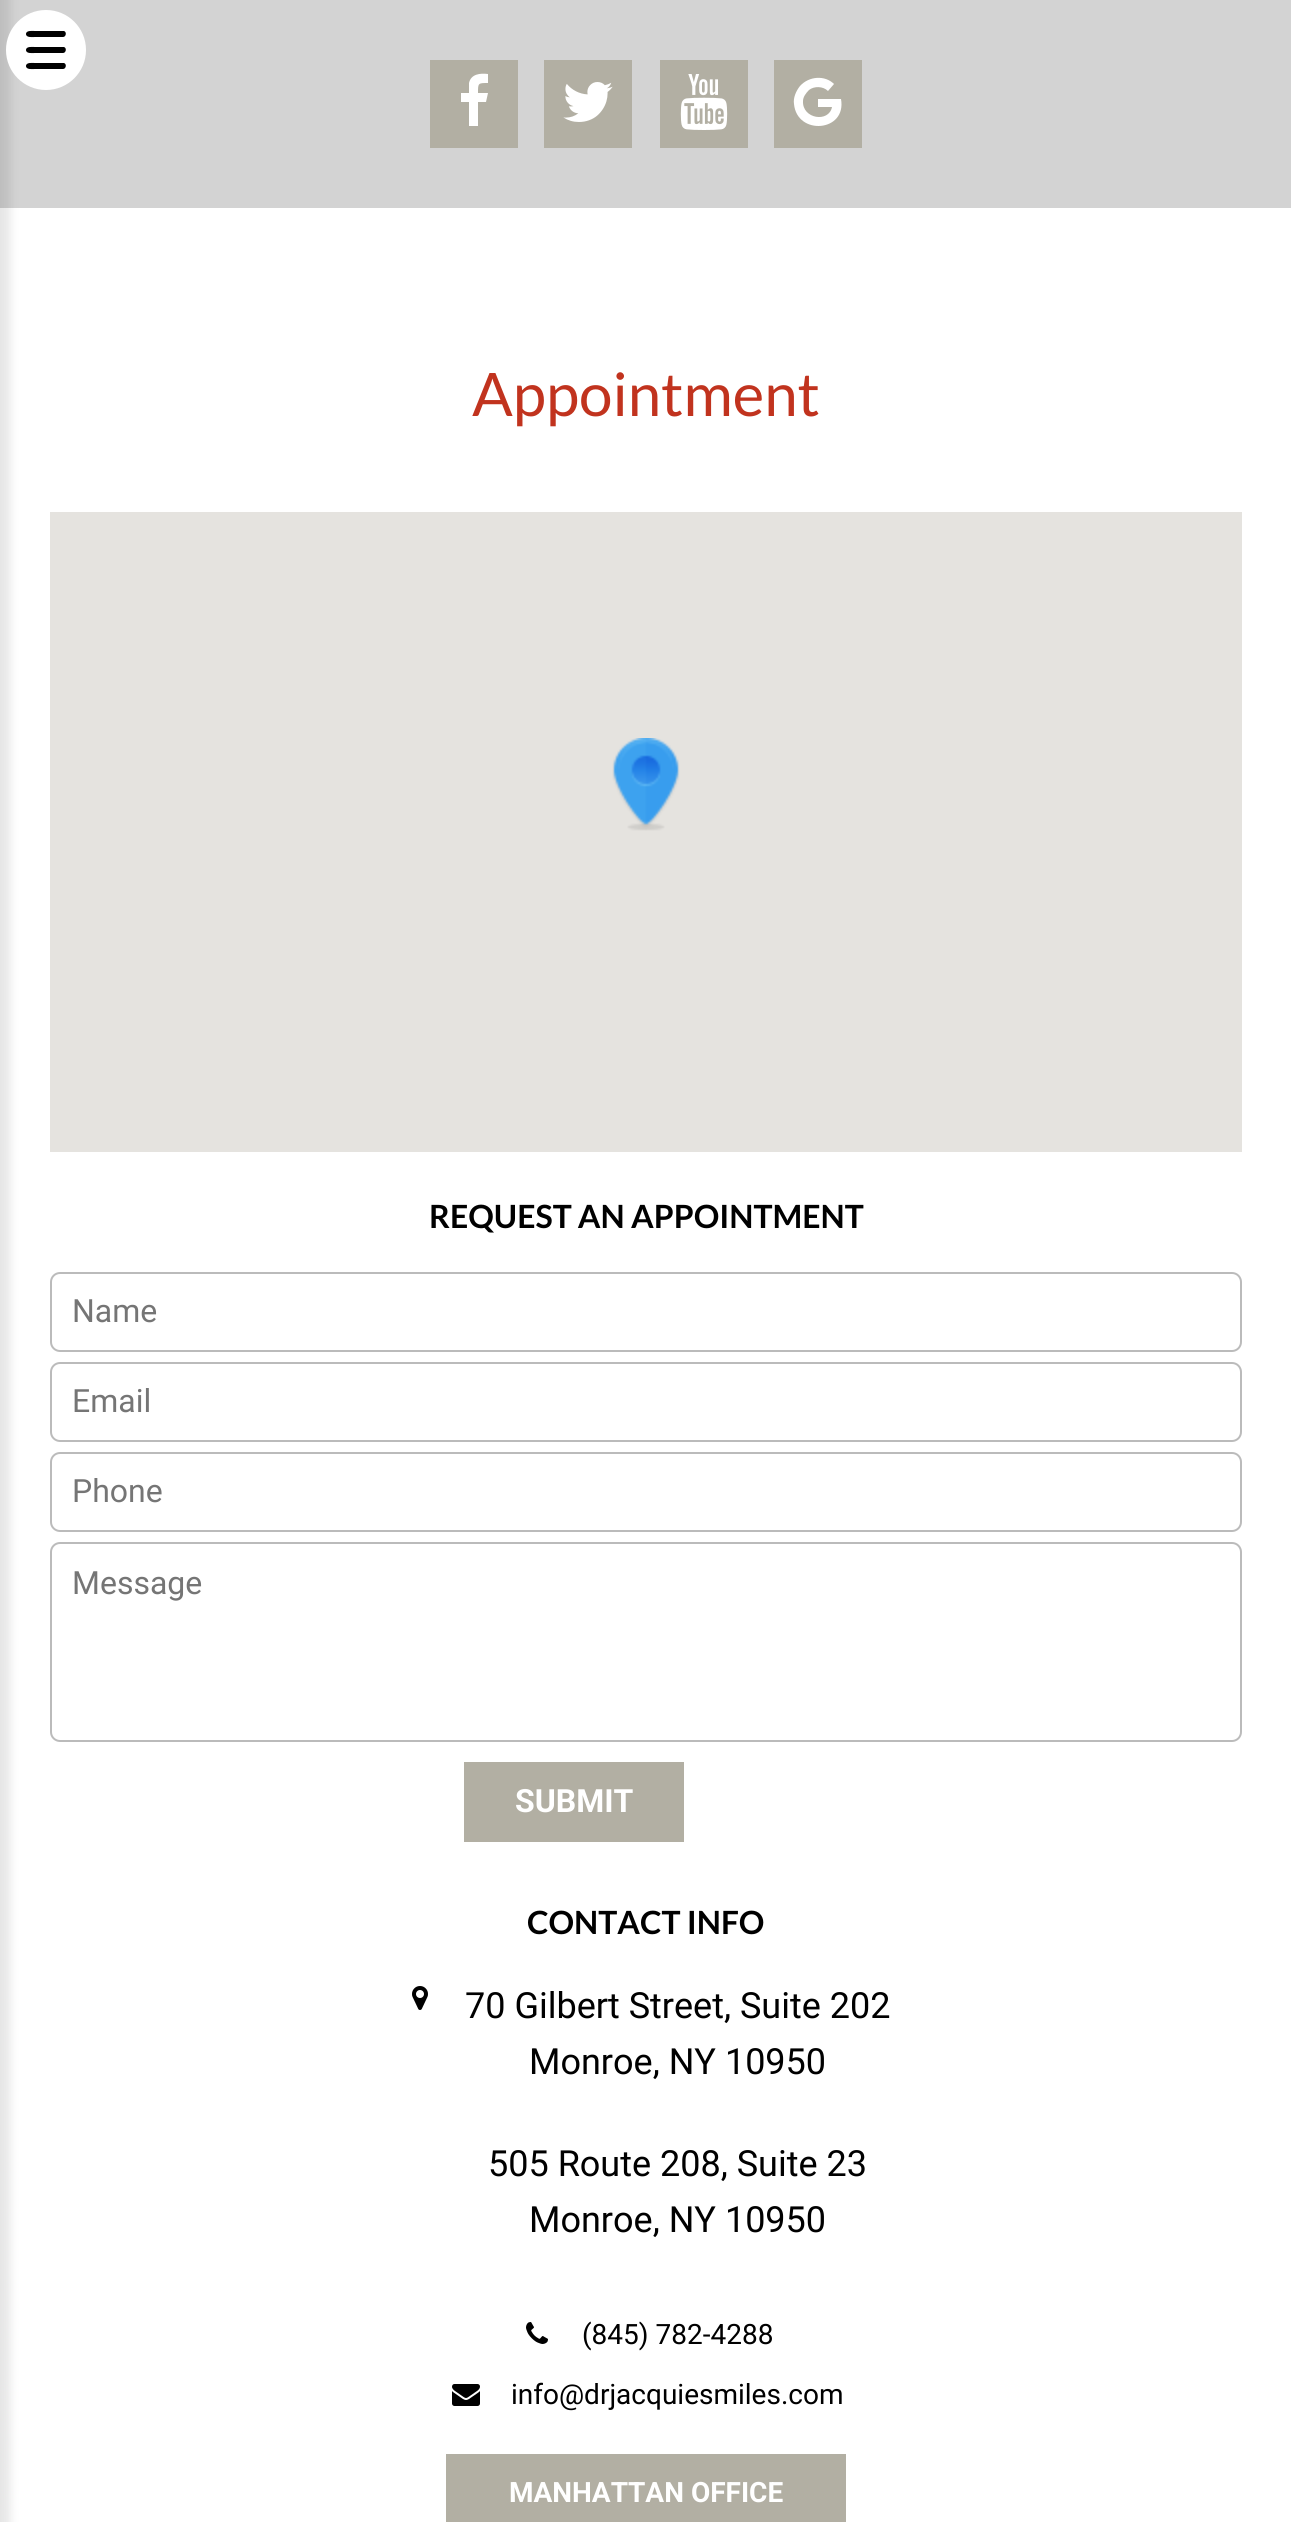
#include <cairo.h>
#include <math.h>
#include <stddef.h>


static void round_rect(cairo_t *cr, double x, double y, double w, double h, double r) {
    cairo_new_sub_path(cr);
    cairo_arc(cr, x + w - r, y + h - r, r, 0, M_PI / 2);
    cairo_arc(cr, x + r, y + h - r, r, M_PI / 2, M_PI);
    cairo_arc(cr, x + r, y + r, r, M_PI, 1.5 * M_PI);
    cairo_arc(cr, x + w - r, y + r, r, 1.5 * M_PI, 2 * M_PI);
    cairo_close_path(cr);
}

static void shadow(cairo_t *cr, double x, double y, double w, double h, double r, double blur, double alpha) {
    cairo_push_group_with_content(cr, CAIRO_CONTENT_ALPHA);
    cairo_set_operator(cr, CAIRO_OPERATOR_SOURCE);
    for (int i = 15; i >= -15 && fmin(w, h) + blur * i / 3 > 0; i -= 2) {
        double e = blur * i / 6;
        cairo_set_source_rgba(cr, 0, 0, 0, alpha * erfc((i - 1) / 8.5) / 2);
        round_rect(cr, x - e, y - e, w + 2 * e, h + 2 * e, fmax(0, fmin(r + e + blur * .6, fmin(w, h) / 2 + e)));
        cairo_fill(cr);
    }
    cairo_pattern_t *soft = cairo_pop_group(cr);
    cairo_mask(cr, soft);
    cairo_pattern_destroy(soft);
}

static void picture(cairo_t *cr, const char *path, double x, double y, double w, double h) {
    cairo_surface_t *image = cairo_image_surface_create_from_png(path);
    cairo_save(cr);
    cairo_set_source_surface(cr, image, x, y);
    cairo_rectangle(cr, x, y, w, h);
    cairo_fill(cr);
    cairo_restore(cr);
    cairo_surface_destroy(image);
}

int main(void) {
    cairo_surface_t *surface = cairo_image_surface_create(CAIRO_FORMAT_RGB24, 1291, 2522);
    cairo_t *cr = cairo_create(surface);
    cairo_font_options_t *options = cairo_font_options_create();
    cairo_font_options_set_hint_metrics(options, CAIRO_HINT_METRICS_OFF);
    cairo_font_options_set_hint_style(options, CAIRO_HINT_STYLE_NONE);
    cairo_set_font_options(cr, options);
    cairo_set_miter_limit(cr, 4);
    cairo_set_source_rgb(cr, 1, 1, 1);
    cairo_paint(cr);
    cairo_set_source_rgb(cr, 0.827, 0.827, 0.827);
    cairo_rectangle(cr, 0, 0, 1291, 208);
    cairo_fill(cr);
    cairo_set_source_rgb(cr, 0, 0, 0);
    shadow(cr, -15, -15, 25, 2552, 0, 5, 0.1);
    cairo_set_source_rgb(cr, 1, 1, 1);
    cairo_arc(cr, 46, 50, 40, 0, 2 * M_PI);
    cairo_fill(cr);
    cairo_set_source_rgb(cr, 0, 0, 0);
    cairo_new_path(cr);
    cairo_move_to(cr, 63, 53);
    cairo_line_to(cr, 35, 53);
    cairo_curve_to(cr, 33, 53, 26, 54, 26, 50);
    cairo_curve_to(cr, 26, 46, 33, 47, 35, 47);
    cairo_line_to(cr, 64, 47);
    cairo_curve_to(cr, 67, 48, 66, 53, 63, 53);
    cairo_close_path(cr);
    cairo_move_to(cr, 63, 69);
    cairo_line_to(cr, 35, 69);
    cairo_curve_to(cr, 33, 69, 26, 70, 26, 66);
    cairo_curve_to(cr, 26, 62, 33, 63, 35, 63);
    cairo_line_to(cr, 64, 63);
    cairo_curve_to(cr, 67, 64, 66, 69, 63, 69);
    cairo_close_path(cr);
    cairo_move_to(cr, 63, 37);
    cairo_line_to(cr, 35, 37);
    cairo_curve_to(cr, 33, 37, 26, 38, 26, 34);
    cairo_curve_to(cr, 26, 30, 33, 31, 35, 31);
    cairo_line_to(cr, 64, 31);
    cairo_curve_to(cr, 67, 32, 66, 37, 63, 37);
    cairo_close_path(cr);
    cairo_fill(cr);
    cairo_set_source_rgb(cr, 0.698, 0.686, 0.639);
    cairo_rectangle(cr, 430, 60, 88, 88);
    cairo_fill(cr);
    cairo_set_source_rgb(cr, 1, 1, 1);
    cairo_new_path(cr);
    cairo_move_to(cr, 488, 74);
    cairo_line_to(cr, 488, 83);
    cairo_curve_to(cr, 478, 83, 478, 83, 478, 93);
    cairo_line_to(cr, 488, 93);
    cairo_line_to(cr, 486, 102);
    cairo_line_to(cr, 478, 102);
    cairo_line_to(cr, 478, 126);
    cairo_line_to(cr, 469, 126);
    cairo_line_to(cr, 469, 102);
    cairo_line_to(cr, 461, 102);
    cairo_line_to(cr, 461, 93);
    cairo_line_to(cr, 469, 93);
    cairo_line_to(cr, 469, 83);
    cairo_curve_to(cr, 471, 74, 480, 73, 488, 74);
    cairo_close_path(cr);
    cairo_fill(cr);
    cairo_set_source_rgb(cr, 0.698, 0.686, 0.639);
    cairo_rectangle(cr, 544, 60, 88, 88);
    cairo_fill(cr);
    picture(cr, "img1.png", 563, 82, 50, 40);
    cairo_rectangle(cr, 660, 60, 88, 88);
    cairo_fill(cr);
    picture(cr, "img2.png", 680, 74, 48, 56);
    cairo_rectangle(cr, 774, 60, 88, 88);
    cairo_fill(cr);
    cairo_set_source_rgb(cr, 1, 1, 1);
    cairo_new_path(cr);
    cairo_move_to(cr, 818, 99);
    cairo_line_to(cr, 841, 99);
    cairo_curve_to(cr, 847, 132, 797, 136, 794, 104);
    cairo_curve_to(cr, 793, 98, 796, 91, 800, 86);
    cairo_curve_to(cr, 809, 76, 825, 75, 834, 84);
    cairo_line_to(cr, 828, 91);
    cairo_curve_to(cr, 823, 86, 814, 86, 809, 90);
    cairo_curve_to(cr, 806, 93, 803, 97, 803, 101);
    cairo_curve_to(cr, 802, 119, 829, 123, 832, 107);
    cairo_line_to(cr, 818, 107);
    cairo_close_path(cr);
    cairo_fill(cr);
    cairo_select_font_face(cr, "Lato", CAIRO_FONT_SLANT_NORMAL, CAIRO_FONT_WEIGHT_NORMAL);
    cairo_set_font_size(cr, 60);
    cairo_set_source_rgb(cr, 0.757, 0.2, 0.118);
    cairo_move_to(cr, 472, 416);
    cairo_show_text(cr, "Appointment");
    cairo_set_source_rgb(cr, 0.898, 0.89, 0.875);
    cairo_rectangle(cr, 50, 512, 1192, 640);
    cairo_fill(cr);
    picture(cr, "img3.png", 612, 738, 68, 93);
    cairo_select_font_face(cr, "Lato", CAIRO_FONT_SLANT_NORMAL, CAIRO_FONT_WEIGHT_BOLD);
    cairo_set_font_size(cr, 32);
    cairo_set_source_rgb(cr, 0, 0, 0);
    cairo_move_to(cr, 429, 1228);
    cairo_show_text(cr, "REQUEST AN APPOINTMENT");
    round_rect(cr, 51, 1273, 1190, 78, 9);
    cairo_set_source_rgb(cr, 0.733, 0.733, 0.733);
    cairo_stroke(cr);
    cairo_select_font_face(cr, "Roboto", CAIRO_FONT_SLANT_NORMAL, CAIRO_FONT_WEIGHT_NORMAL);
    cairo_set_source_rgb(cr, 0.459, 0.459, 0.459);
    cairo_move_to(cr, 72, 1322);
    cairo_show_text(cr, "Name");
    round_rect(cr, 51, 1363, 1190, 78, 9);
    cairo_set_source_rgb(cr, 0.733, 0.733, 0.733);
    cairo_stroke(cr);
    cairo_set_source_rgb(cr, 0.459, 0.459, 0.459);
    cairo_move_to(cr, 72, 1412);
    cairo_show_text(cr, "Email");
    round_rect(cr, 51, 1453, 1190, 78, 9);
    cairo_set_source_rgb(cr, 0.733, 0.733, 0.733);
    cairo_stroke(cr);
    cairo_set_source_rgb(cr, 0.459, 0.459, 0.459);
    cairo_move_to(cr, 72, 1502);
    cairo_show_text(cr, "Phone");
    round_rect(cr, 51, 1543, 1190, 198, 9);
    cairo_set_source_rgb(cr, 0.733, 0.733, 0.733);
    cairo_stroke(cr);
    cairo_set_source_rgb(cr, 0.459, 0.459, 0.459);
    cairo_move_to(cr, 72, 1594);
    cairo_show_text(cr, "Message");
    cairo_set_source_rgb(cr, 0.698, 0.686, 0.639);
    cairo_rectangle(cr, 464, 1762, 220, 80);
    cairo_fill(cr);
    cairo_select_font_face(cr, "Roboto", CAIRO_FONT_SLANT_NORMAL, CAIRO_FONT_WEIGHT_BOLD);
    cairo_set_source_rgb(cr, 1, 1, 1);
    cairo_move_to(cr, 515, 1812);
    cairo_show_text(cr, "SUBMIT");
    cairo_select_font_face(cr, "Lato", CAIRO_FONT_SLANT_NORMAL, CAIRO_FONT_WEIGHT_BOLD);
    cairo_set_source_rgb(cr, 0, 0, 0);
    cairo_move_to(cr, 527, 1934);
    cairo_show_text(cr, "CONTACT INFO");
    picture(cr, "img4.png", 412, 1986, 16, 24);
    cairo_select_font_face(cr, "Roboto", CAIRO_FONT_SLANT_NORMAL, CAIRO_FONT_WEIGHT_NORMAL);
    cairo_set_font_size(cr, 36);
    cairo_move_to(cr, 465, 2018);
    cairo_show_text(cr, "70 Gilbert Street, Suite 202");
    cairo_move_to(cr, 529, 2074);
    cairo_show_text(cr, "Monroe, NY 10950");
    cairo_move_to(cr, 488, 2176);
    cairo_show_text(cr, "505 Route 208, Suite 23");
    cairo_move_to(cr, 529, 2232);
    cairo_show_text(cr, "Monroe, NY 10950");
    picture(cr, "img5.png", 526, 2322, 22, 22);
    cairo_set_font_size(cr, 28);
    cairo_move_to(cr, 582, 2344);
    cairo_show_text(cr, "(845) 782-4288");
    picture(cr, "img6.png", 452, 2384, 28, 22);
    cairo_move_to(cr, 511, 2404);
    cairo_show_text(cr, "info@drjacquiesmiles.com");
    cairo_set_source_rgb(cr, 0.698, 0.686, 0.639);
    cairo_rectangle(cr, 446, 2454, 400, 68);
    cairo_fill(cr);
    cairo_select_font_face(cr, "Roboto", CAIRO_FONT_SLANT_NORMAL, CAIRO_FONT_WEIGHT_BOLD);
    cairo_set_source_rgb(cr, 1, 1, 1);
    cairo_move_to(cr, 509, 2502);
    cairo_show_text(cr, "MANHATTAN OFFICE");
    cairo_surface_write_to_png(surface, "page.png");
    cairo_font_options_destroy(options);
    cairo_destroy(cr);
    cairo_surface_destroy(surface);
    return 0;
}
